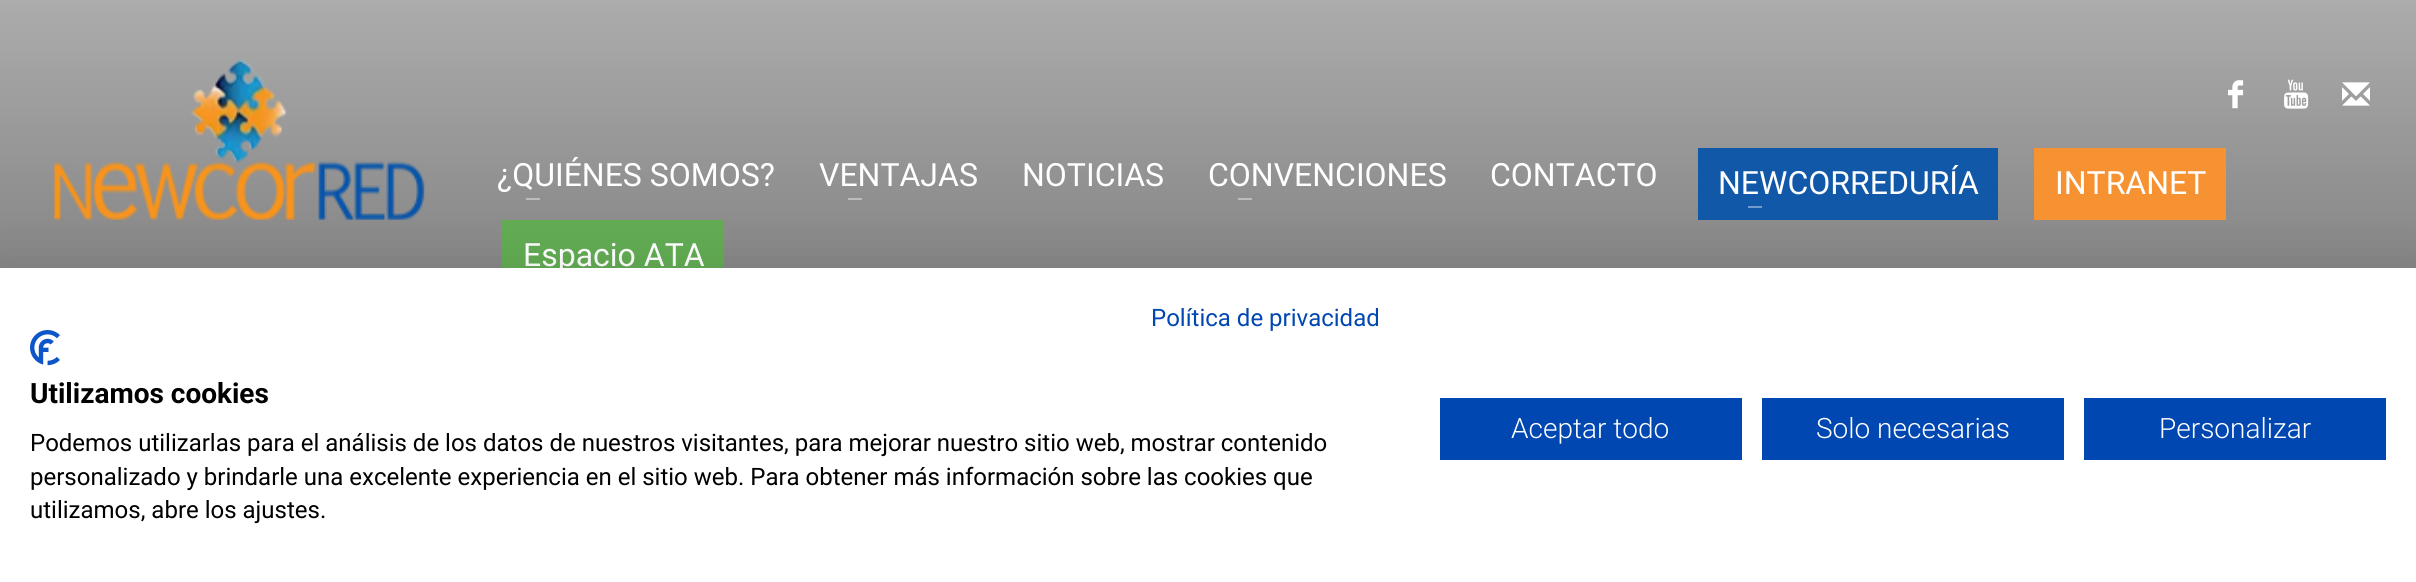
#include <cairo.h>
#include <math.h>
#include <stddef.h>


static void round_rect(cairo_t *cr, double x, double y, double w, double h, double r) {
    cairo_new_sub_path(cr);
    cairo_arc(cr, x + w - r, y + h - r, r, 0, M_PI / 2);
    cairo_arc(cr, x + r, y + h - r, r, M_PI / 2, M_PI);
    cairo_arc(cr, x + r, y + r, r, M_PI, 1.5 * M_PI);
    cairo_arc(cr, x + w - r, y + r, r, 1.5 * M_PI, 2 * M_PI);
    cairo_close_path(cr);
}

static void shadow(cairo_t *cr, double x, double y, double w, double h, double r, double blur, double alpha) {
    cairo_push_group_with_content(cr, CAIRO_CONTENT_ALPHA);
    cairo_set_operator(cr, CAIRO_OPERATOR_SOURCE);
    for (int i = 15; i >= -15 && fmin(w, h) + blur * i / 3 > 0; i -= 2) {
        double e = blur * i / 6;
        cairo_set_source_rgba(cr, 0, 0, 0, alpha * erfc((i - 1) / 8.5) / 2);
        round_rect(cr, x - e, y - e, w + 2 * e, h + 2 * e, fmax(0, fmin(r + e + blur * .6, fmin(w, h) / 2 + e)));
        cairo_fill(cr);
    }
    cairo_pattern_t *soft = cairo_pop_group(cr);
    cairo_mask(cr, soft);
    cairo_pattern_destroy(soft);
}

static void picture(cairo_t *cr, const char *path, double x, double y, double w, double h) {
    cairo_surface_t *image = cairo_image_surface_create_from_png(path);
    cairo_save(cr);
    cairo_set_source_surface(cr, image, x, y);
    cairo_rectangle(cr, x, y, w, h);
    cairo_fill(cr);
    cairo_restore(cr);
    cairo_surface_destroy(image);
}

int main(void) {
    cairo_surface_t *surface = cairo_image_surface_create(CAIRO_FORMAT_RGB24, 2416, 582);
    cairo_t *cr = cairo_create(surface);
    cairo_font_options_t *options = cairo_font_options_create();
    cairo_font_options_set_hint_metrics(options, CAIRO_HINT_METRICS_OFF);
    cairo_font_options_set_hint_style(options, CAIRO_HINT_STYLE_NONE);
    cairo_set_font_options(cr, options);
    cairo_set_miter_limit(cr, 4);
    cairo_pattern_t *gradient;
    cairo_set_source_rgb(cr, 1, 1, 1);
    cairo_paint(cr);
    gradient = cairo_pattern_create_linear(1208, 0, 1208, 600);
    cairo_pattern_add_color_stop_rgba(gradient, 0, 0.675, 0.675, 0.675, 1);
    cairo_pattern_add_color_stop_rgba(gradient, 1, 0.337, 0.337, 0.337, 1);
    cairo_set_source(cr, gradient);
    cairo_pattern_destroy(gradient);
    cairo_rectangle(cr, 0, 0, 2416, 268);
    cairo_fill(cr);
    picture(cr, "img1.png", 54, 60, 371, 160);
    picture(cr, "img2.png", 2228, 80, 16, 29);
    picture(cr, "img3.png", 2284, 79, 25, 30);
    picture(cr, "img4.png", 2342, 82, 28, 24);
    cairo_select_font_face(cr, "Roboto", CAIRO_FONT_SLANT_NORMAL, CAIRO_FONT_WEIGHT_NORMAL);
    cairo_set_font_size(cr, 32);
    cairo_set_source_rgb(cr, 1, 1, 1);
    cairo_move_to(cr, 497, 186);
    cairo_show_text(cr, "¿QUIÉNES SOMOS?");
    cairo_set_source_rgb(cr, 0.737, 0.737, 0.737);
    cairo_rectangle(cr, 526, 198, 14, 2);
    cairo_fill(cr);
    cairo_set_source_rgb(cr, 1, 1, 1);
    cairo_move_to(cr, 819, 186);
    cairo_show_text(cr, "VENTAJAS");
    cairo_set_source_rgb(cr, 0.737, 0.737, 0.737);
    cairo_rectangle(cr, 848, 198, 14, 2);
    cairo_fill(cr);
    cairo_set_source_rgb(cr, 1, 1, 1);
    cairo_move_to(cr, 1022, 186);
    cairo_show_text(cr, "NOTICIAS");
    cairo_move_to(cr, 1208, 186);
    cairo_show_text(cr, "CONVENCIONES");
    cairo_set_source_rgb(cr, 0.737, 0.737, 0.737);
    cairo_rectangle(cr, 1238, 198, 14, 2);
    cairo_fill(cr);
    cairo_set_source_rgb(cr, 1, 1, 1);
    cairo_move_to(cr, 1490, 186);
    cairo_show_text(cr, "CONTACTO");
    cairo_set_source_rgb(cr, 0.067, 0.345, 0.659);
    cairo_rectangle(cr, 1698, 148, 300, 72);
    cairo_fill(cr);
    cairo_set_source_rgb(cr, 1, 1, 1);
    cairo_move_to(cr, 1718, 194);
    cairo_show_text(cr, "NEWCORREDURÍA");
    cairo_set_source_rgb(cr, 0.439, 0.608, 0.796);
    cairo_rectangle(cr, 1748, 206, 14, 2);
    cairo_fill(cr);
    cairo_set_source_rgb(cr, 0.961, 0.573, 0.192);
    cairo_rectangle(cr, 2034, 148, 192, 72);
    cairo_fill(cr);
    cairo_set_source_rgb(cr, 1, 1, 1);
    cairo_move_to(cr, 2055, 194);
    cairo_show_text(cr, "INTRANET");
    cairo_set_source_rgb(cr, 0.384, 0.671, 0.325);
    cairo_rectangle(cr, 502, 220, 222, 48);
    cairo_fill(cr);
    cairo_set_source_rgb(cr, 1, 1, 1);
    cairo_move_to(cr, 523, 266);
    cairo_show_text(cr, "Espacio ATA");
    cairo_set_source_rgb(cr, 0, 0, 0);
    shadow(cr, 0, 268, 2416, 314, 0, 24, 0.1);
    cairo_set_source_rgb(cr, 1, 1, 1);
    cairo_rectangle(cr, 0, 268, 2416, 314);
    cairo_fill(cr);
    cairo_set_font_size(cr, 24);
    cairo_set_source_rgb(cr, 0, 0.278, 0.698);
    cairo_move_to(cr, 1151, 326);
    cairo_show_text(cr, "Política de privacidad");
    picture(cr, "img5.png", 30, 330, 30, 36);
    cairo_select_font_face(cr, "Roboto", CAIRO_FONT_SLANT_NORMAL, CAIRO_FONT_WEIGHT_BOLD);
    cairo_set_font_size(cr, 28);
    cairo_set_source_rgb(cr, 0, 0, 0);
    cairo_move_to(cr, 30, 403);
    cairo_show_text(cr, "Utilizamos cookies");
    cairo_select_font_face(cr, "Roboto", CAIRO_FONT_SLANT_NORMAL, CAIRO_FONT_WEIGHT_NORMAL);
    cairo_set_font_size(cr, 24);
    cairo_move_to(cr, 30, 451);
    cairo_show_text(cr, "Podemos utilizarlas para el análisis de los datos de nuestros visitantes, para mejorar nuestro sitio web, mostrar contenido");
    cairo_move_to(cr, 30, 485);
    cairo_show_text(cr, "personalizado y brindarle una excelente experiencia en el sitio web. Para obtener más información sobre las cookies que");
    cairo_move_to(cr, 30, 518);
    cairo_show_text(cr, "utilizamos, abre los ajustes.");
    cairo_set_source_rgb(cr, 0, 0.278, 0.698);
    cairo_rectangle(cr, 1440, 398, 302, 62);
    cairo_fill(cr);
    cairo_select_font_face(cr, "Roboto Light", CAIRO_FONT_SLANT_NORMAL, CAIRO_FONT_WEIGHT_NORMAL);
    cairo_set_font_size(cr, 28);
    cairo_set_source_rgb(cr, 1, 1, 1);
    cairo_move_to(cr, 1511, 438);
    cairo_show_text(cr, "Aceptar todo");
    cairo_set_source_rgb(cr, 0, 0.278, 0.698);
    cairo_rectangle(cr, 1762, 398, 302, 62);
    cairo_fill(cr);
    cairo_set_source_rgb(cr, 1, 1, 1);
    cairo_move_to(cr, 1816, 438);
    cairo_show_text(cr, "Solo necesarias");
    cairo_set_source_rgb(cr, 0, 0.278, 0.698);
    cairo_rectangle(cr, 2084, 398, 302, 62);
    cairo_fill(cr);
    cairo_set_source_rgb(cr, 1, 1, 1);
    cairo_move_to(cr, 2159, 438);
    cairo_show_text(cr, "Personalizar");
    cairo_surface_write_to_png(surface, "page.png");
    cairo_font_options_destroy(options);
    cairo_destroy(cr);
    cairo_surface_destroy(surface);
    return 0;
}
